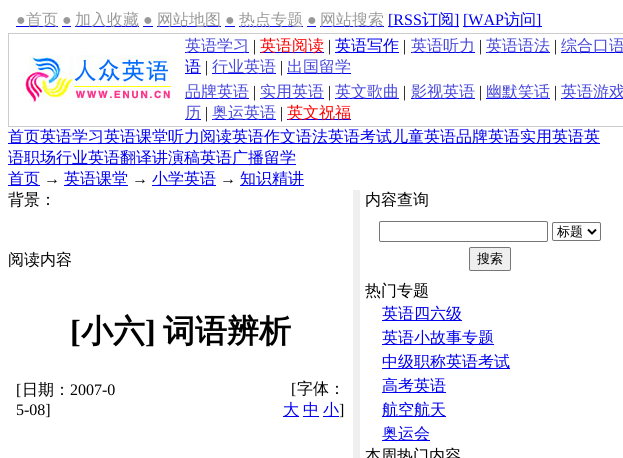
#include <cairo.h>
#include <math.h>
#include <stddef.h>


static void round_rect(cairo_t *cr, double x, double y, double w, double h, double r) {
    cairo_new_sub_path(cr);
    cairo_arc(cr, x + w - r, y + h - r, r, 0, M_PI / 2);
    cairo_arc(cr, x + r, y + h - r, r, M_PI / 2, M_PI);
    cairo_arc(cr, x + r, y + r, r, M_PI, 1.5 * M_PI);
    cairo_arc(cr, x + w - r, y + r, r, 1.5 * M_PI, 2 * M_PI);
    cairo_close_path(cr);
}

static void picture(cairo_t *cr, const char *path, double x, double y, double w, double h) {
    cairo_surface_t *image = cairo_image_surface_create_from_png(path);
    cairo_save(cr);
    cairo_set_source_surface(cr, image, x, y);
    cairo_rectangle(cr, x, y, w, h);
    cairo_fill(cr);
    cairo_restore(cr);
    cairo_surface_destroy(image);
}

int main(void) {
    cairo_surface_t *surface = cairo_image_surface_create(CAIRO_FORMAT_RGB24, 623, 458);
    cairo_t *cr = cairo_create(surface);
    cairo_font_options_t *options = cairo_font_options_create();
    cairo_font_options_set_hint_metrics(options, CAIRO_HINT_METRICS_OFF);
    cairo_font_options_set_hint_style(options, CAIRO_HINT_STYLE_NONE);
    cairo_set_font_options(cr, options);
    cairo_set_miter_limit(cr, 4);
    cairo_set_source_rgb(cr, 1, 1, 1);
    cairo_paint(cr);
    cairo_select_font_face(cr, "Liberation Serif", CAIRO_FONT_SLANT_NORMAL, CAIRO_FONT_WEIGHT_NORMAL);
    cairo_set_font_size(cr, 16);
    cairo_set_source_rgb(cr, 0.6, 0.6, 0.6);
    cairo_move_to(cr, 16, 25);
    cairo_show_text(cr, "●");
    cairo_set_source_rgb(cr, 0, 0, 0.933);
    cairo_rectangle(cr, 16, 26, 42, 1);
    cairo_fill(cr);
    cairo_select_font_face(cr, "WenQuanYi Zen Hei Medium", CAIRO_FONT_SLANT_NORMAL, CAIRO_FONT_WEIGHT_NORMAL);
    cairo_set_source_rgb(cr, 0.6, 0.6, 0.6);
    cairo_move_to(cr, 26, 25);
    cairo_show_text(cr, "首页");
    cairo_select_font_face(cr, "Liberation Serif", CAIRO_FONT_SLANT_NORMAL, CAIRO_FONT_WEIGHT_NORMAL);
    cairo_move_to(cr, 62, 25);
    cairo_show_text(cr, "●");
    cairo_set_source_rgb(cr, 0, 0, 0.933);
    cairo_rectangle(cr, 62, 26, 9, 1);
    cairo_fill(cr);
    cairo_rectangle(cr, 75, 26, 64, 1);
    cairo_fill(cr);
    cairo_select_font_face(cr, "WenQuanYi Zen Hei Medium", CAIRO_FONT_SLANT_NORMAL, CAIRO_FONT_WEIGHT_NORMAL);
    cairo_set_source_rgb(cr, 0.6, 0.6, 0.6);
    cairo_move_to(cr, 75, 25);
    cairo_show_text(cr, "加入收藏");
    cairo_select_font_face(cr, "Liberation Serif", CAIRO_FONT_SLANT_NORMAL, CAIRO_FONT_WEIGHT_NORMAL);
    cairo_move_to(cr, 143, 25);
    cairo_show_text(cr, "●");
    cairo_set_source_rgb(cr, 0, 0, 0.933);
    cairo_rectangle(cr, 143, 26, 10, 1);
    cairo_fill(cr);
    cairo_rectangle(cr, 157, 26, 64, 1);
    cairo_fill(cr);
    cairo_select_font_face(cr, "WenQuanYi Zen Hei Medium", CAIRO_FONT_SLANT_NORMAL, CAIRO_FONT_WEIGHT_NORMAL);
    cairo_set_source_rgb(cr, 0.6, 0.6, 0.6);
    cairo_move_to(cr, 157, 25);
    cairo_show_text(cr, "网站地图");
    cairo_select_font_face(cr, "Liberation Serif", CAIRO_FONT_SLANT_NORMAL, CAIRO_FONT_WEIGHT_NORMAL);
    cairo_move_to(cr, 225, 25);
    cairo_show_text(cr, "●");
    cairo_set_source_rgb(cr, 0, 0, 0.933);
    cairo_rectangle(cr, 225, 26, 10, 1);
    cairo_fill(cr);
    cairo_rectangle(cr, 239, 26, 64, 1);
    cairo_fill(cr);
    cairo_select_font_face(cr, "WenQuanYi Zen Hei Medium", CAIRO_FONT_SLANT_NORMAL, CAIRO_FONT_WEIGHT_NORMAL);
    cairo_set_source_rgb(cr, 0.6, 0.6, 0.6);
    cairo_move_to(cr, 239, 25);
    cairo_show_text(cr, "热点专题");
    cairo_select_font_face(cr, "Liberation Serif", CAIRO_FONT_SLANT_NORMAL, CAIRO_FONT_WEIGHT_NORMAL);
    cairo_move_to(cr, 307, 25);
    cairo_show_text(cr, "●");
    cairo_set_source_rgb(cr, 0, 0, 0.933);
    cairo_rectangle(cr, 307, 26, 9, 1);
    cairo_fill(cr);
    cairo_rectangle(cr, 320, 26, 64, 1);
    cairo_fill(cr);
    cairo_select_font_face(cr, "WenQuanYi Zen Hei Medium", CAIRO_FONT_SLANT_NORMAL, CAIRO_FONT_WEIGHT_NORMAL);
    cairo_set_source_rgb(cr, 0.6, 0.6, 0.6);
    cairo_move_to(cr, 320, 25);
    cairo_show_text(cr, "网站搜索");
    cairo_set_source_rgb(cr, 0, 0, 0.933);
    cairo_rectangle(cr, 388, 26, 71, 1);
    cairo_fill(cr);
    cairo_select_font_face(cr, "Liberation Serif", CAIRO_FONT_SLANT_NORMAL, CAIRO_FONT_WEIGHT_NORMAL);
    cairo_move_to(cr, 388, 25);
    cairo_show_text(cr, "[RSS");
    cairo_select_font_face(cr, "WenQuanYi Zen Hei Medium", CAIRO_FONT_SLANT_NORMAL, CAIRO_FONT_WEIGHT_NORMAL);
    cairo_move_to(cr, 422, 25);
    cairo_show_text(cr, "订阅");
    cairo_select_font_face(cr, "Liberation Serif", CAIRO_FONT_SLANT_NORMAL, CAIRO_FONT_WEIGHT_NORMAL);
    cairo_move_to(cr, 454, 25);
    cairo_show_text(cr, "]");
    cairo_rectangle(cr, 463, 26, 79, 1);
    cairo_fill(cr);
    cairo_move_to(cr, 463, 25);
    cairo_show_text(cr, "[WAP");
    cairo_select_font_face(cr, "WenQuanYi Zen Hei Medium", CAIRO_FONT_SLANT_NORMAL, CAIRO_FONT_WEIGHT_NORMAL);
    cairo_move_to(cr, 504, 25);
    cairo_show_text(cr, "访问");
    cairo_select_font_face(cr, "Liberation Serif", CAIRO_FONT_SLANT_NORMAL, CAIRO_FONT_WEIGHT_NORMAL);
    cairo_move_to(cr, 536, 25);
    cairo_show_text(cr, "]");
    cairo_set_source_rgb(cr, 0.8, 0.8, 0.8);
    cairo_rectangle(cr, 8, 33, 615, 94);
    cairo_fill(cr);
    cairo_set_source_rgb(cr, 1, 1, 1);
    cairo_rectangle(cr, 9, 34, 614, 92);
    cairo_fill(cr);
    picture(cr, "img1.png", 21, 55, 150, 48);
    cairo_set_source_rgb(cr, 0, 0, 0.933);
    cairo_rectangle(cr, 185, 52, 64, 1);
    cairo_fill(cr);
    cairo_select_font_face(cr, "WenQuanYi Zen Hei Medium", CAIRO_FONT_SLANT_NORMAL, CAIRO_FONT_WEIGHT_NORMAL);
    cairo_set_source_rgb(cr, 0.278, 0.278, 0.859);
    cairo_move_to(cr, 185, 51);
    cairo_show_text(cr, "英语学习");
    cairo_select_font_face(cr, "Liberation Serif", CAIRO_FONT_SLANT_NORMAL, CAIRO_FONT_WEIGHT_NORMAL);
    cairo_set_source_rgb(cr, 0, 0, 0);
    cairo_move_to(cr, 253, 51);
    cairo_show_text(cr, "|");
    cairo_set_source_rgb(cr, 0, 0, 0.933);
    cairo_rectangle(cr, 260, 52, 64, 1);
    cairo_fill(cr);
    cairo_select_font_face(cr, "WenQuanYi Zen Hei Medium", CAIRO_FONT_SLANT_NORMAL, CAIRO_FONT_WEIGHT_NORMAL);
    cairo_set_source_rgb(cr, 1, 0, 0);
    cairo_move_to(cr, 260, 51);
    cairo_show_text(cr, "英语阅读");
    cairo_select_font_face(cr, "Liberation Serif", CAIRO_FONT_SLANT_NORMAL, CAIRO_FONT_WEIGHT_NORMAL);
    cairo_set_source_rgb(cr, 0, 0, 0);
    cairo_move_to(cr, 328, 51);
    cairo_show_text(cr, "|");
    cairo_set_source_rgb(cr, 0, 0, 0.933);
    cairo_rectangle(cr, 335, 52, 64, 1);
    cairo_fill(cr);
    cairo_select_font_face(cr, "WenQuanYi Zen Hei Medium", CAIRO_FONT_SLANT_NORMAL, CAIRO_FONT_WEIGHT_NORMAL);
    cairo_move_to(cr, 335, 51);
    cairo_show_text(cr, "英语写作");
    cairo_select_font_face(cr, "Liberation Serif", CAIRO_FONT_SLANT_NORMAL, CAIRO_FONT_WEIGHT_NORMAL);
    cairo_set_source_rgb(cr, 0, 0, 0);
    cairo_move_to(cr, 403, 51);
    cairo_show_text(cr, "|");
    cairo_set_source_rgb(cr, 0, 0, 0.933);
    cairo_rectangle(cr, 411, 52, 64, 1);
    cairo_fill(cr);
    cairo_select_font_face(cr, "WenQuanYi Zen Hei Medium", CAIRO_FONT_SLANT_NORMAL, CAIRO_FONT_WEIGHT_NORMAL);
    cairo_set_source_rgb(cr, 0.278, 0.278, 0.859);
    cairo_move_to(cr, 411, 51);
    cairo_show_text(cr, "英语听力");
    cairo_select_font_face(cr, "Liberation Serif", CAIRO_FONT_SLANT_NORMAL, CAIRO_FONT_WEIGHT_NORMAL);
    cairo_set_source_rgb(cr, 0, 0, 0);
    cairo_move_to(cr, 479, 51);
    cairo_show_text(cr, "|");
    cairo_set_source_rgb(cr, 0, 0, 0.933);
    cairo_rectangle(cr, 486, 52, 64, 1);
    cairo_fill(cr);
    cairo_select_font_face(cr, "WenQuanYi Zen Hei Medium", CAIRO_FONT_SLANT_NORMAL, CAIRO_FONT_WEIGHT_NORMAL);
    cairo_set_source_rgb(cr, 0.278, 0.278, 0.859);
    cairo_move_to(cr, 486, 51);
    cairo_show_text(cr, "英语语法");
    cairo_select_font_face(cr, "Liberation Serif", CAIRO_FONT_SLANT_NORMAL, CAIRO_FONT_WEIGHT_NORMAL);
    cairo_set_source_rgb(cr, 0, 0, 0);
    cairo_move_to(cr, 554, 51);
    cairo_show_text(cr, "|");
    cairo_set_source_rgb(cr, 0, 0, 0.933);
    cairo_rectangle(cr, 561, 52, 62, 1);
    cairo_fill(cr);
    cairo_select_font_face(cr, "WenQuanYi Zen Hei Medium", CAIRO_FONT_SLANT_NORMAL, CAIRO_FONT_WEIGHT_NORMAL);
    cairo_set_source_rgb(cr, 0.278, 0.278, 0.859);
    cairo_move_to(cr, 561, 51);
    cairo_show_text(cr, "综合口语");
    cairo_set_source_rgb(cr, 0, 0, 0.933);
    cairo_rectangle(cr, 185, 73, 16, 1);
    cairo_fill(cr);
    cairo_move_to(cr, 185, 72);
    cairo_show_text(cr, "语");
    cairo_select_font_face(cr, "Liberation Serif", CAIRO_FONT_SLANT_NORMAL, CAIRO_FONT_WEIGHT_NORMAL);
    cairo_set_source_rgb(cr, 0, 0, 0);
    cairo_move_to(cr, 205, 72);
    cairo_show_text(cr, "|");
    cairo_set_source_rgb(cr, 0, 0, 0.933);
    cairo_rectangle(cr, 212, 73, 64, 1);
    cairo_fill(cr);
    cairo_select_font_face(cr, "WenQuanYi Zen Hei Medium", CAIRO_FONT_SLANT_NORMAL, CAIRO_FONT_WEIGHT_NORMAL);
    cairo_set_source_rgb(cr, 0.278, 0.278, 0.859);
    cairo_move_to(cr, 212, 72);
    cairo_show_text(cr, "行业英语");
    cairo_select_font_face(cr, "Liberation Serif", CAIRO_FONT_SLANT_NORMAL, CAIRO_FONT_WEIGHT_NORMAL);
    cairo_set_source_rgb(cr, 0, 0, 0);
    cairo_move_to(cr, 280, 72);
    cairo_show_text(cr, "|");
    cairo_set_source_rgb(cr, 0, 0, 0.933);
    cairo_rectangle(cr, 287, 73, 64, 1);
    cairo_fill(cr);
    cairo_select_font_face(cr, "WenQuanYi Zen Hei Medium", CAIRO_FONT_SLANT_NORMAL, CAIRO_FONT_WEIGHT_NORMAL);
    cairo_set_source_rgb(cr, 0.278, 0.278, 0.859);
    cairo_move_to(cr, 287, 72);
    cairo_show_text(cr, "出国留学");
    cairo_set_source_rgb(cr, 0, 0, 0.933);
    cairo_rectangle(cr, 185, 98, 64, 1);
    cairo_fill(cr);
    cairo_set_source_rgb(cr, 0.278, 0.278, 0.859);
    cairo_move_to(cr, 185, 97);
    cairo_show_text(cr, "品牌英语");
    cairo_select_font_face(cr, "Liberation Serif", CAIRO_FONT_SLANT_NORMAL, CAIRO_FONT_WEIGHT_NORMAL);
    cairo_set_source_rgb(cr, 0, 0, 0);
    cairo_move_to(cr, 253, 97);
    cairo_show_text(cr, "|");
    cairo_set_source_rgb(cr, 0, 0, 0.933);
    cairo_rectangle(cr, 260, 98, 64, 1);
    cairo_fill(cr);
    cairo_select_font_face(cr, "WenQuanYi Zen Hei Medium", CAIRO_FONT_SLANT_NORMAL, CAIRO_FONT_WEIGHT_NORMAL);
    cairo_set_source_rgb(cr, 0.278, 0.278, 0.859);
    cairo_move_to(cr, 260, 97);
    cairo_show_text(cr, "实用英语");
    cairo_select_font_face(cr, "Liberation Serif", CAIRO_FONT_SLANT_NORMAL, CAIRO_FONT_WEIGHT_NORMAL);
    cairo_set_source_rgb(cr, 0, 0, 0);
    cairo_move_to(cr, 328, 97);
    cairo_show_text(cr, "|");
    cairo_set_source_rgb(cr, 0, 0, 0.933);
    cairo_rectangle(cr, 335, 98, 64, 1);
    cairo_fill(cr);
    cairo_select_font_face(cr, "WenQuanYi Zen Hei Medium", CAIRO_FONT_SLANT_NORMAL, CAIRO_FONT_WEIGHT_NORMAL);
    cairo_set_source_rgb(cr, 0.278, 0.278, 0.859);
    cairo_move_to(cr, 335, 97);
    cairo_show_text(cr, "英文歌曲");
    cairo_select_font_face(cr, "Liberation Serif", CAIRO_FONT_SLANT_NORMAL, CAIRO_FONT_WEIGHT_NORMAL);
    cairo_set_source_rgb(cr, 0, 0, 0);
    cairo_move_to(cr, 403, 97);
    cairo_show_text(cr, "|");
    cairo_set_source_rgb(cr, 0, 0, 0.933);
    cairo_rectangle(cr, 411, 98, 64, 1);
    cairo_fill(cr);
    cairo_select_font_face(cr, "WenQuanYi Zen Hei Medium", CAIRO_FONT_SLANT_NORMAL, CAIRO_FONT_WEIGHT_NORMAL);
    cairo_set_source_rgb(cr, 0.278, 0.278, 0.859);
    cairo_move_to(cr, 411, 97);
    cairo_show_text(cr, "影视英语");
    cairo_select_font_face(cr, "Liberation Serif", CAIRO_FONT_SLANT_NORMAL, CAIRO_FONT_WEIGHT_NORMAL);
    cairo_set_source_rgb(cr, 0, 0, 0);
    cairo_move_to(cr, 479, 97);
    cairo_show_text(cr, "|");
    cairo_set_source_rgb(cr, 0, 0, 0.933);
    cairo_rectangle(cr, 486, 98, 64, 1);
    cairo_fill(cr);
    cairo_select_font_face(cr, "WenQuanYi Zen Hei Medium", CAIRO_FONT_SLANT_NORMAL, CAIRO_FONT_WEIGHT_NORMAL);
    cairo_set_source_rgb(cr, 0.278, 0.278, 0.859);
    cairo_move_to(cr, 486, 97);
    cairo_show_text(cr, "幽默笑话");
    cairo_select_font_face(cr, "Liberation Serif", CAIRO_FONT_SLANT_NORMAL, CAIRO_FONT_WEIGHT_NORMAL);
    cairo_set_source_rgb(cr, 0, 0, 0);
    cairo_move_to(cr, 554, 97);
    cairo_show_text(cr, "|");
    cairo_set_source_rgb(cr, 0, 0, 0.933);
    cairo_rectangle(cr, 561, 98, 62, 1);
    cairo_fill(cr);
    cairo_select_font_face(cr, "WenQuanYi Zen Hei Medium", CAIRO_FONT_SLANT_NORMAL, CAIRO_FONT_WEIGHT_NORMAL);
    cairo_set_source_rgb(cr, 0.278, 0.278, 0.859);
    cairo_move_to(cr, 561, 97);
    cairo_show_text(cr, "英语游戏");
    cairo_set_source_rgb(cr, 0, 0, 0.933);
    cairo_rectangle(cr, 185, 119, 16, 1);
    cairo_fill(cr);
    cairo_set_source_rgb(cr, 0.278, 0.278, 0.859);
    cairo_move_to(cr, 185, 118);
    cairo_show_text(cr, "历");
    cairo_select_font_face(cr, "Liberation Serif", CAIRO_FONT_SLANT_NORMAL, CAIRO_FONT_WEIGHT_NORMAL);
    cairo_set_source_rgb(cr, 0, 0, 0);
    cairo_move_to(cr, 205, 118);
    cairo_show_text(cr, "|");
    cairo_set_source_rgb(cr, 0, 0, 0.933);
    cairo_rectangle(cr, 212, 119, 64, 1);
    cairo_fill(cr);
    cairo_select_font_face(cr, "WenQuanYi Zen Hei Medium", CAIRO_FONT_SLANT_NORMAL, CAIRO_FONT_WEIGHT_NORMAL);
    cairo_set_source_rgb(cr, 0.278, 0.278, 0.859);
    cairo_move_to(cr, 212, 118);
    cairo_show_text(cr, "奥运英语");
    cairo_select_font_face(cr, "Liberation Serif", CAIRO_FONT_SLANT_NORMAL, CAIRO_FONT_WEIGHT_NORMAL);
    cairo_set_source_rgb(cr, 0, 0, 0);
    cairo_move_to(cr, 280, 118);
    cairo_show_text(cr, "|");
    cairo_set_source_rgb(cr, 0, 0, 0.933);
    cairo_rectangle(cr, 287, 119, 64, 1);
    cairo_fill(cr);
    cairo_select_font_face(cr, "WenQuanYi Zen Hei Medium", CAIRO_FONT_SLANT_NORMAL, CAIRO_FONT_WEIGHT_NORMAL);
    cairo_set_source_rgb(cr, 1, 0, 0);
    cairo_move_to(cr, 287, 118);
    cairo_show_text(cr, "英文祝福");
    cairo_set_source_rgb(cr, 0, 0, 0.933);
    cairo_rectangle(cr, 8, 143, 592, 1);
    cairo_fill(cr);
    cairo_move_to(cr, 8, 142);
    cairo_show_text(cr, "首页英语学习英语课堂听力阅读英语作文语法英语考试儿童英语品牌英语实用英语英");
    cairo_rectangle(cr, 8, 164, 288, 1);
    cairo_fill(cr);
    cairo_move_to(cr, 8, 163);
    cairo_show_text(cr, "语职场行业英语翻译讲演稿英语广播留学");
    cairo_rectangle(cr, 8, 185, 32, 1);
    cairo_fill(cr);
    cairo_move_to(cr, 8, 184);
    cairo_show_text(cr, "首页");
    cairo_select_font_face(cr, "Liberation Serif", CAIRO_FONT_SLANT_NORMAL, CAIRO_FONT_WEIGHT_NORMAL);
    cairo_set_source_rgb(cr, 0, 0, 0);
    cairo_move_to(cr, 44, 184);
    cairo_show_text(cr, "→");
    cairo_set_source_rgb(cr, 0, 0, 0.933);
    cairo_rectangle(cr, 64, 185, 64, 1);
    cairo_fill(cr);
    cairo_select_font_face(cr, "WenQuanYi Zen Hei Medium", CAIRO_FONT_SLANT_NORMAL, CAIRO_FONT_WEIGHT_NORMAL);
    cairo_move_to(cr, 64, 184);
    cairo_show_text(cr, "英语课堂");
    cairo_select_font_face(cr, "Liberation Serif", CAIRO_FONT_SLANT_NORMAL, CAIRO_FONT_WEIGHT_NORMAL);
    cairo_set_source_rgb(cr, 0, 0, 0);
    cairo_move_to(cr, 132, 184);
    cairo_show_text(cr, "→");
    cairo_set_source_rgb(cr, 0, 0, 0.933);
    cairo_rectangle(cr, 152, 185, 64, 1);
    cairo_fill(cr);
    cairo_select_font_face(cr, "WenQuanYi Zen Hei Medium", CAIRO_FONT_SLANT_NORMAL, CAIRO_FONT_WEIGHT_NORMAL);
    cairo_move_to(cr, 152, 184);
    cairo_show_text(cr, "小学英语");
    cairo_select_font_face(cr, "Liberation Serif", CAIRO_FONT_SLANT_NORMAL, CAIRO_FONT_WEIGHT_NORMAL);
    cairo_set_source_rgb(cr, 0, 0, 0);
    cairo_move_to(cr, 220, 184);
    cairo_show_text(cr, "→");
    cairo_set_source_rgb(cr, 0, 0, 0.933);
    cairo_rectangle(cr, 240, 185, 64, 1);
    cairo_fill(cr);
    cairo_select_font_face(cr, "WenQuanYi Zen Hei Medium", CAIRO_FONT_SLANT_NORMAL, CAIRO_FONT_WEIGHT_NORMAL);
    cairo_move_to(cr, 240, 184);
    cairo_show_text(cr, "知识精讲");
    cairo_set_source_rgb(cr, 0, 0, 0);
    cairo_move_to(cr, 8, 205);
    cairo_show_text(cr, "背景：");
    cairo_move_to(cr, 8, 265);
    cairo_show_text(cr, "阅读内容");
    cairo_select_font_face(cr, "Liberation Serif", CAIRO_FONT_SLANT_NORMAL, CAIRO_FONT_WEIGHT_BOLD);
    cairo_set_font_size(cr, 32);
    cairo_move_to(cr, 70, 342);
    cairo_show_text(cr, "[");
    cairo_select_font_face(cr, "WenQuanYi Zen Hei", CAIRO_FONT_SLANT_NORMAL, CAIRO_FONT_WEIGHT_BOLD);
    cairo_move_to(cr, 81, 342);
    cairo_show_text(cr, "小六");
    cairo_select_font_face(cr, "Liberation Serif", CAIRO_FONT_SLANT_NORMAL, CAIRO_FONT_WEIGHT_BOLD);
    cairo_move_to(cr, 145, 342);
    cairo_show_text(cr, "]");
    cairo_select_font_face(cr, "WenQuanYi Zen Hei", CAIRO_FONT_SLANT_NORMAL, CAIRO_FONT_WEIGHT_BOLD);
    cairo_move_to(cr, 163, 342);
    cairo_show_text(cr, "词语辨析");
    cairo_select_font_face(cr, "Liberation Serif", CAIRO_FONT_SLANT_NORMAL, CAIRO_FONT_WEIGHT_NORMAL);
    cairo_set_font_size(cr, 16);
    cairo_move_to(cr, 16, 395);
    cairo_show_text(cr, "[");
    cairo_select_font_face(cr, "WenQuanYi Zen Hei Medium", CAIRO_FONT_SLANT_NORMAL, CAIRO_FONT_WEIGHT_NORMAL);
    cairo_move_to(cr, 22, 395);
    cairo_show_text(cr, "日期：");
    cairo_select_font_face(cr, "Liberation Serif", CAIRO_FONT_SLANT_NORMAL, CAIRO_FONT_WEIGHT_NORMAL);
    cairo_move_to(cr, 70, 395);
    cairo_show_text(cr, "2007-0");
    cairo_move_to(cr, 16, 415);
    cairo_show_text(cr, "5-08]");
    cairo_move_to(cr, 291, 394);
    cairo_show_text(cr, "[");
    cairo_select_font_face(cr, "WenQuanYi Zen Hei Medium", CAIRO_FONT_SLANT_NORMAL, CAIRO_FONT_WEIGHT_NORMAL);
    cairo_move_to(cr, 297, 394);
    cairo_show_text(cr, "字体：");
    cairo_set_source_rgb(cr, 0, 0, 0.933);
    cairo_rectangle(cr, 283, 416, 16, 1);
    cairo_fill(cr);
    cairo_move_to(cr, 283, 415);
    cairo_show_text(cr, "大");
    cairo_rectangle(cr, 303, 416, 16, 1);
    cairo_fill(cr);
    cairo_move_to(cr, 303, 415);
    cairo_show_text(cr, "中");
    cairo_rectangle(cr, 323, 416, 16, 1);
    cairo_fill(cr);
    cairo_move_to(cr, 323, 415);
    cairo_show_text(cr, "小");
    cairo_select_font_face(cr, "Liberation Serif", CAIRO_FONT_SLANT_NORMAL, CAIRO_FONT_WEIGHT_NORMAL);
    cairo_set_source_rgb(cr, 0, 0, 0);
    cairo_move_to(cr, 339, 415);
    cairo_show_text(cr, "]");
    cairo_set_source_rgb(cr, 0.937, 0.937, 0.937);
    cairo_rectangle(cr, 353, 190, 7, 268);
    cairo_fill(cr);
    cairo_select_font_face(cr, "WenQuanYi Zen Hei Medium", CAIRO_FONT_SLANT_NORMAL, CAIRO_FONT_WEIGHT_NORMAL);
    cairo_set_source_rgb(cr, 0, 0, 0);
    cairo_move_to(cr, 365, 205);
    cairo_show_text(cr, "内容查询");
    round_rect(cr, 379.5, 221.5, 168, 20, 1.5);
    cairo_set_source_rgb(cr, 0.463, 0.463, 0.463);
    cairo_set_line_width(cr, 1);
    cairo_stroke(cr);
    round_rect(cr, 552.5, 222.5, 48, 18, 1.5);
    cairo_stroke(cr);
    cairo_new_path(cr);
    cairo_move_to(cr, 588, 229.5);
    cairo_line_to(cr, 592, 233.5);
    cairo_line_to(cr, 596, 229.5);
    cairo_set_source_rgb(cr, 0, 0, 0);
    cairo_set_line_width(cr, 2);
    cairo_stroke(cr);
    cairo_set_font_size(cr, 13);
    cairo_move_to(cr, 557, 236);
    cairo_show_text(cr, "标题");
    cairo_set_source_rgb(cr, 0.937, 0.937, 0.937);
    round_rect(cr, 469.5, 247.5, 41, 23, 1.5);
    cairo_fill_preserve(cr);
    cairo_set_source_rgb(cr, 0.463, 0.463, 0.463);
    cairo_set_line_width(cr, 1);
    cairo_stroke(cr);
    cairo_set_source_rgb(cr, 0, 0, 0);
    cairo_move_to(cr, 477, 263);
    cairo_show_text(cr, "搜索");
    cairo_set_font_size(cr, 16);
    cairo_move_to(cr, 365, 296);
    cairo_show_text(cr, "热门专题");
    cairo_set_source_rgb(cr, 0, 0, 0.933);
    cairo_rectangle(cr, 382, 320, 80, 1);
    cairo_fill(cr);
    cairo_move_to(cr, 382, 319);
    cairo_show_text(cr, "英语四六级");
    cairo_rectangle(cr, 382, 344, 112, 1);
    cairo_fill(cr);
    cairo_move_to(cr, 382, 343);
    cairo_show_text(cr, "英语小故事专题");
    cairo_rectangle(cr, 382, 368, 128, 1);
    cairo_fill(cr);
    cairo_move_to(cr, 382, 367);
    cairo_show_text(cr, "中级职称英语考试");
    cairo_rectangle(cr, 382, 392, 64, 1);
    cairo_fill(cr);
    cairo_move_to(cr, 382, 391);
    cairo_show_text(cr, "高考英语");
    cairo_rectangle(cr, 382, 416, 64, 1);
    cairo_fill(cr);
    cairo_move_to(cr, 382, 415);
    cairo_show_text(cr, "航空航天");
    cairo_rectangle(cr, 382, 440, 48, 1);
    cairo_fill(cr);
    cairo_move_to(cr, 382, 439);
    cairo_show_text(cr, "奥运会");
    cairo_set_source_rgb(cr, 0, 0, 0);
    cairo_move_to(cr, 365, 461);
    cairo_show_text(cr, "本周热门内容");
    cairo_surface_write_to_png(surface, "page.png");
    cairo_font_options_destroy(options);
    cairo_destroy(cr);
    cairo_surface_destroy(surface);
    return 0;
}
